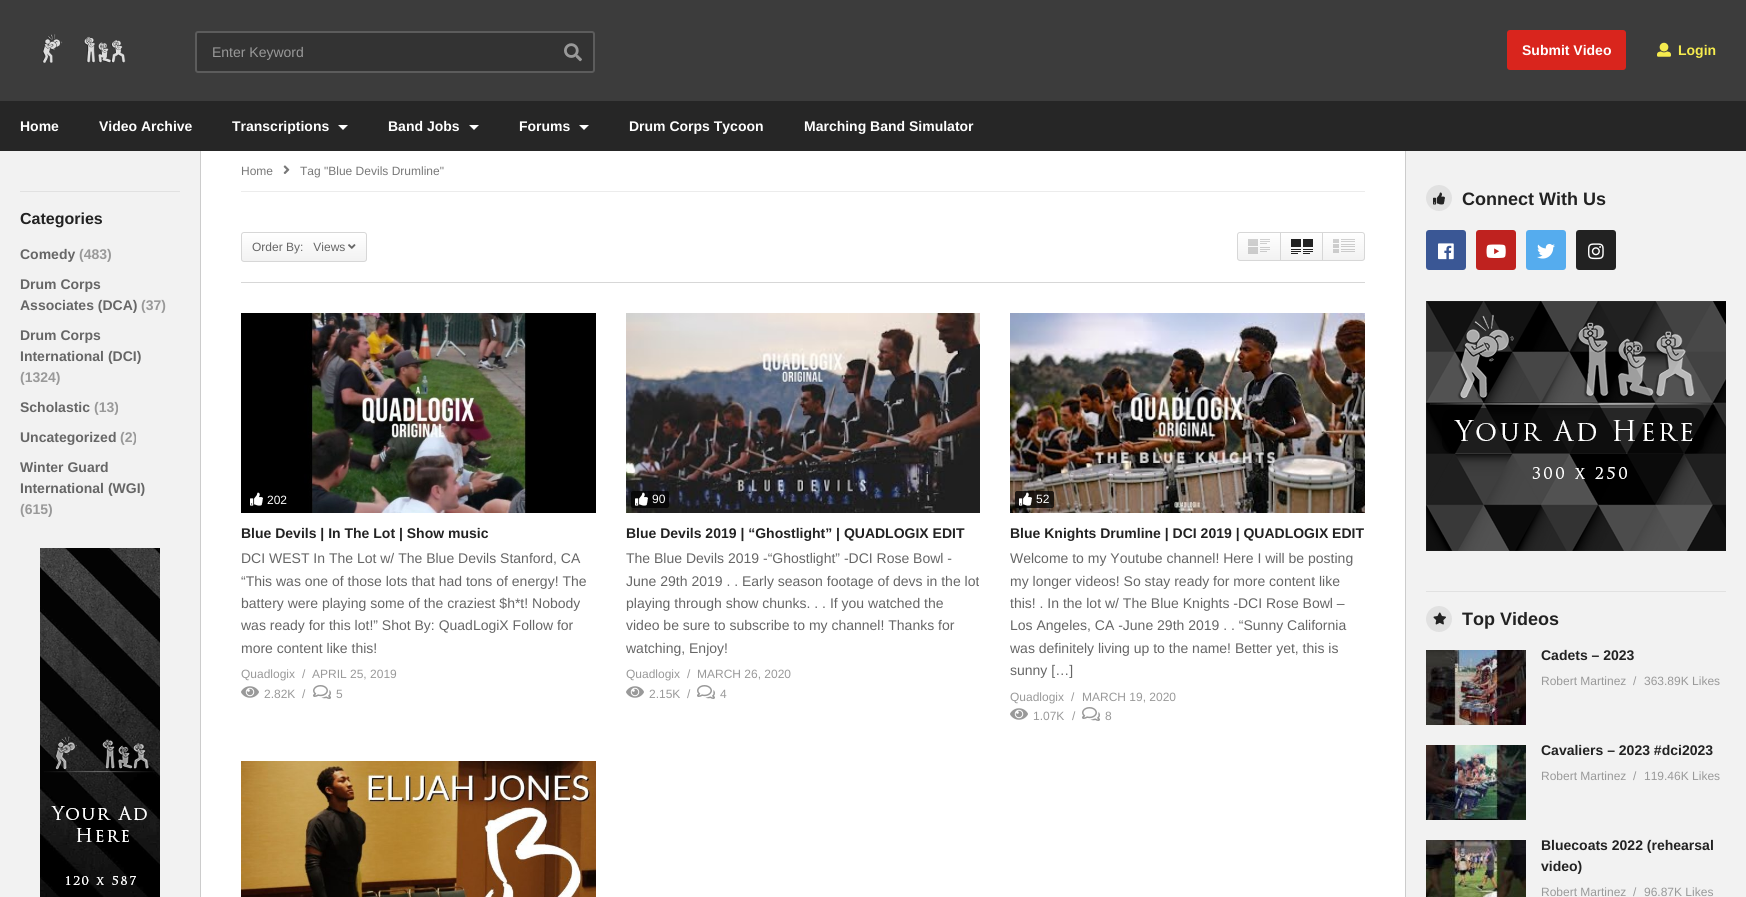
#include <cairo.h>
#include <math.h>
#include <stddef.h>


static void round_rect(cairo_t *cr, double x, double y, double w, double h, double r) {
    cairo_new_sub_path(cr);
    cairo_arc(cr, x + w - r, y + h - r, r, 0, M_PI / 2);
    cairo_arc(cr, x + r, y + h - r, r, M_PI / 2, M_PI);
    cairo_arc(cr, x + r, y + r, r, M_PI, 1.5 * M_PI);
    cairo_arc(cr, x + w - r, y + r, r, 1.5 * M_PI, 2 * M_PI);
    cairo_close_path(cr);
}

static void picture(cairo_t *cr, const char *path, double x, double y, double w, double h) {
    cairo_surface_t *image = cairo_image_surface_create_from_png(path);
    cairo_save(cr);
    cairo_set_source_surface(cr, image, x, y);
    cairo_rectangle(cr, x, y, w, h);
    cairo_fill(cr);
    cairo_restore(cr);
    cairo_surface_destroy(image);
}

int main(void) {
    cairo_surface_t *surface = cairo_image_surface_create(CAIRO_FORMAT_RGB24, 1746, 897);
    cairo_t *cr = cairo_create(surface);
    cairo_font_options_t *options = cairo_font_options_create();
    cairo_font_options_set_hint_metrics(options, CAIRO_HINT_METRICS_OFF);
    cairo_font_options_set_hint_style(options, CAIRO_HINT_STYLE_NONE);
    cairo_set_font_options(cr, options);
    cairo_set_miter_limit(cr, 4);
    cairo_pattern_t *gradient;
    cairo_set_source_rgb(cr, 0.949, 0.949, 0.949);
    cairo_paint(cr);
    cairo_set_source_rgb(cr, 0.235, 0.235, 0.235);
    cairo_rectangle(cr, 0, 0, 1746, 101);
    cairo_fill(cr);
    picture(cr, "img1.png", 42, 34, 84, 29);
    cairo_set_source_rgb(cr, 0.2, 0.2, 0.2);
    round_rect(cr, 195, 31, 400, 42, 3);
    cairo_fill(cr);
    round_rect(cr, 196, 32, 398, 40, 2);
    cairo_set_source_rgba(cr, 1, 1, 1, 0.2);
    cairo_stroke(cr);
    cairo_select_font_face(cr, "Liberation Sans", CAIRO_FONT_SLANT_NORMAL, CAIRO_FONT_WEIGHT_NORMAL);
    cairo_set_font_size(cr, 14);
    cairo_set_source_rgb(cr, 0.6, 0.6, 0.6);
    cairo_move_to(cr, 212, 57);
    cairo_show_text(cr, "Enter Keyword");
    picture(cr, "img2.png", 564, 43, 18, 19);
    cairo_set_source_rgb(cr, 0.851, 0.145, 0.114);
    round_rect(cr, 1507, 30, 119, 40, 3);
    cairo_fill(cr);
    cairo_select_font_face(cr, "Liberation Sans", CAIRO_FONT_SLANT_NORMAL, CAIRO_FONT_WEIGHT_BOLD);
    cairo_set_source_rgb(cr, 1, 1, 1);
    cairo_move_to(cr, 1522, 55);
    cairo_show_text(cr, "Submit Video");
    picture(cr, "img3.png", 1657, 42, 14, 15);
    cairo_set_source_rgb(cr, 0.961, 0.922, 0.306);
    cairo_move_to(cr, 1678, 55);
    cairo_show_text(cr, "Login");
    cairo_set_source_rgb(cr, 0.8, 0.8, 0.8);
    cairo_rectangle(cr, 1405, 149, 1, 748);
    cairo_fill(cr);
    cairo_rectangle(cr, 200, 149, 1, 748);
    cairo_fill(cr);
    cairo_set_source_rgb(cr, 0.149, 0.149, 0.149);
    cairo_rectangle(cr, 0, 101, 1746, 50);
    cairo_fill(cr);
    cairo_set_source_rgb(cr, 1, 1, 1);
    cairo_move_to(cr, 20, 131);
    cairo_show_text(cr, "Home");
    cairo_move_to(cr, 99, 131);
    cairo_show_text(cr, "Video Archive");
    cairo_move_to(cr, 232, 131);
    cairo_show_text(cr, "Transcriptions");
    cairo_new_path(cr);
    cairo_move_to(cr, 338, 125);
    cairo_line_to(cr, 348, 125);
    cairo_line_to(cr, 343, 130);
    cairo_close_path(cr);
    cairo_fill(cr);
    cairo_move_to(cr, 388, 131);
    cairo_show_text(cr, "Band Jobs");
    cairo_new_path(cr);
    cairo_move_to(cr, 469, 125);
    cairo_line_to(cr, 479, 125);
    cairo_line_to(cr, 474, 130);
    cairo_close_path(cr);
    cairo_fill(cr);
    cairo_move_to(cr, 519, 131);
    cairo_show_text(cr, "Forums");
    cairo_new_path(cr);
    cairo_move_to(cr, 579, 125);
    cairo_line_to(cr, 589, 125);
    cairo_line_to(cr, 584, 130);
    cairo_close_path(cr);
    cairo_fill(cr);
    cairo_move_to(cr, 629, 131);
    cairo_show_text(cr, "Drum Corps Tycoon");
    cairo_move_to(cr, 804, 131);
    cairo_show_text(cr, "Marching Band Simulator");
    cairo_rectangle(cr, 201, 151, 1204, 746);
    cairo_fill(cr);
    cairo_set_source_rgb(cr, 0.882, 0.882, 0.882);
    cairo_rectangle(cr, 20, 191, 160, 1);
    cairo_fill(cr);
    cairo_set_font_size(cr, 16);
    cairo_set_source_rgb(cr, 0.133, 0.133, 0.133);
    cairo_move_to(cr, 20, 224);
    cairo_show_text(cr, "Categories");
    cairo_set_font_size(cr, 14);
    cairo_set_source_rgb(cr, 0.4, 0.4, 0.4);
    cairo_move_to(cr, 20, 259);
    cairo_show_text(cr, "Comedy");
    cairo_set_source_rgb(cr, 0.6, 0.6, 0.6);
    cairo_move_to(cr, 79, 259);
    cairo_show_text(cr, "(483)");
    cairo_set_source_rgb(cr, 0.4, 0.4, 0.4);
    cairo_move_to(cr, 20, 289);
    cairo_show_text(cr, "Drum Corps");
    cairo_move_to(cr, 20, 310);
    cairo_show_text(cr, "Associates (DCA)");
    cairo_set_source_rgb(cr, 0.6, 0.6, 0.6);
    cairo_move_to(cr, 141, 310);
    cairo_show_text(cr, "(37)");
    cairo_set_source_rgb(cr, 0.4, 0.4, 0.4);
    cairo_move_to(cr, 20, 340);
    cairo_show_text(cr, "Drum Corps");
    cairo_move_to(cr, 20, 361);
    cairo_show_text(cr, "International (DCI)");
    cairo_set_source_rgb(cr, 0.6, 0.6, 0.6);
    cairo_move_to(cr, 20, 382);
    cairo_show_text(cr, "(1324)");
    cairo_set_source_rgb(cr, 0.4, 0.4, 0.4);
    cairo_move_to(cr, 20, 412);
    cairo_show_text(cr, "Scholastic");
    cairo_set_source_rgb(cr, 0.6, 0.6, 0.6);
    cairo_move_to(cr, 94, 412);
    cairo_show_text(cr, "(13)");
    cairo_set_source_rgb(cr, 0.4, 0.4, 0.4);
    cairo_move_to(cr, 20, 442);
    cairo_show_text(cr, "Uncategorized");
    cairo_set_source_rgb(cr, 0.6, 0.6, 0.6);
    cairo_move_to(cr, 120, 442);
    cairo_show_text(cr, "(2)");
    cairo_set_source_rgb(cr, 0.4, 0.4, 0.4);
    cairo_move_to(cr, 20, 472);
    cairo_show_text(cr, "Winter Guard");
    cairo_move_to(cr, 20, 493);
    cairo_show_text(cr, "International (WGI)");
    cairo_set_source_rgb(cr, 0.6, 0.6, 0.6);
    cairo_move_to(cr, 20, 514);
    cairo_show_text(cr, "(615)");
    picture(cr, "img4.png", 40, 548, 120, 349);
    cairo_set_source_rgb(cr, 0.922, 0.922, 0.922);
    cairo_rectangle(cr, 241, 191, 1124, 1);
    cairo_fill(cr);
    cairo_select_font_face(cr, "Liberation Sans", CAIRO_FONT_SLANT_NORMAL, CAIRO_FONT_WEIGHT_NORMAL);
    cairo_set_font_size(cr, 12);
    cairo_set_source_rgb(cr, 0.471, 0.471, 0.471);
    cairo_move_to(cr, 241, 175);
    cairo_show_text(cr, "Home");
    picture(cr, "img5.png", 283, 165, 7, 9);
    cairo_move_to(cr, 300, 175);
    cairo_show_text(cr, "Tag \"Blue Devils Drumline\"");
    cairo_set_source_rgb(cr, 0.843, 0.843, 0.843);
    cairo_rectangle(cr, 241, 282, 1124, 1);
    cairo_fill(cr);
    cairo_save(cr);
    round_rect(cr, 241, 232, 126, 30, 3);
    cairo_clip(cr);
    gradient = cairo_pattern_create_linear(304, 233, 304, 261);
    cairo_pattern_add_color_stop_rgba(gradient, 0, 1, 1, 1, 1);
    cairo_pattern_add_color_stop_rgba(gradient, 1, 0.949, 0.949, 0.949, 1);
    cairo_set_source(cr, gradient);
    cairo_pattern_destroy(gradient);
    cairo_rectangle(cr, 241, 233, 126, 28);
    cairo_fill(cr);
    cairo_restore(cr);
    round_rect(cr, 241.5, 232.5, 125, 29, 2.5);
    cairo_set_line_width(cr, 1);
    cairo_stroke(cr);
    cairo_set_source_rgb(cr, 0.4, 0.4, 0.4);
    cairo_move_to(cr, 252, 251);
    cairo_show_text(cr, "Order By:   Views");
    picture(cr, "img6.png", 348, 244, 8, 5);
    cairo_save(cr);
    round_rect(cr, 1237, 232, 128, 29, 3);
    cairo_clip(cr);
    gradient = cairo_pattern_create_linear(1301, 233, 1301, 260);
    cairo_pattern_add_color_stop_rgba(gradient, 0, 1, 1, 1, 1);
    cairo_pattern_add_color_stop_rgba(gradient, 1, 0.949, 0.949, 0.949, 1);
    cairo_set_source(cr, gradient);
    cairo_pattern_destroy(gradient);
    cairo_rectangle(cr, 1237, 233, 128, 27);
    cairo_fill(cr);
    cairo_restore(cr);
    round_rect(cr, 1237.5, 232.5, 127, 28, 2.5);
    cairo_set_source_rgb(cr, 0.843, 0.843, 0.843);
    cairo_stroke(cr);
    picture(cr, "img7.png", 1248, 239, 22, 15);
    cairo_rectangle(cr, 1280, 233, 1, 27);
    cairo_fill(cr);
    picture(cr, "img8.png", 1291, 239, 22, 15);
    cairo_rectangle(cr, 1322, 233, 1, 27);
    cairo_fill(cr);
    picture(cr, "img9.png", 1333, 239, 22, 14);
    picture(cr, "img10.png", 241, 313, 355, 200);
    picture(cr, "img11.png", 250, 492, 13, 14);
    cairo_set_source_rgb(cr, 1, 1, 1);
    cairo_move_to(cr, 267, 504);
    cairo_show_text(cr, "202");
    cairo_select_font_face(cr, "Liberation Sans", CAIRO_FONT_SLANT_NORMAL, CAIRO_FONT_WEIGHT_BOLD);
    cairo_set_font_size(cr, 14);
    cairo_set_source_rgb(cr, 0.133, 0.133, 0.133);
    cairo_move_to(cr, 241, 538);
    cairo_show_text(cr, "Blue Devils | In The Lot | Show music");
    cairo_select_font_face(cr, "Liberation Sans", CAIRO_FONT_SLANT_NORMAL, CAIRO_FONT_WEIGHT_NORMAL);
    cairo_set_source_rgb(cr, 0.4, 0.4, 0.4);
    cairo_move_to(cr, 241, 563);
    cairo_show_text(cr, "DCI WEST In The Lot w/ The Blue Devils Stanford, CA");
    cairo_move_to(cr, 241, 586);
    cairo_show_text(cr, "“This was one of those lots that had tons of energy! The");
    cairo_move_to(cr, 241, 608);
    cairo_show_text(cr, "battery were playing some of the craziest $h*t! Nobody");
    cairo_move_to(cr, 241, 630);
    cairo_show_text(cr, "was ready for this lot!” Shot By: QuadLogiX Follow for");
    cairo_move_to(cr, 241, 653);
    cairo_show_text(cr, "more content like this!");
    cairo_set_font_size(cr, 12);
    cairo_set_source_rgb(cr, 0.6, 0.6, 0.6);
    cairo_move_to(cr, 241, 678);
    cairo_show_text(cr, "Quadlogix");
    cairo_move_to(cr, 302, 678);
    cairo_show_text(cr, "/");
    cairo_move_to(cr, 312, 678);
    cairo_show_text(cr, "APRIL 25, 2019");
    picture(cr, "img12.png", 241, 686, 18, 12);
    cairo_move_to(cr, 264, 698);
    cairo_show_text(cr, "2.82K");
    cairo_move_to(cr, 302, 698);
    cairo_show_text(cr, "/");
    picture(cr, "img13.png", 313, 685, 18, 14);
    cairo_move_to(cr, 336, 698);
    cairo_show_text(cr, "5");
    picture(cr, "img14.png", 626, 313, 354, 200);
    cairo_set_source_rgba(cr, 0, 0, 0, 0.75);
    round_rect(cr, 631, 491, 38, 17, 2);
    cairo_fill(cr);
    picture(cr, "img15.png", 635, 492, 13, 14);
    cairo_set_source_rgb(cr, 1, 1, 1);
    cairo_move_to(cr, 652, 503);
    cairo_show_text(cr, "90");
    cairo_select_font_face(cr, "Liberation Sans", CAIRO_FONT_SLANT_NORMAL, CAIRO_FONT_WEIGHT_BOLD);
    cairo_set_font_size(cr, 14);
    cairo_set_source_rgb(cr, 0.133, 0.133, 0.133);
    cairo_move_to(cr, 626, 538);
    cairo_show_text(cr, "Blue Devils 2019 | “Ghostlight” | QUADLOGIX EDIT");
    cairo_select_font_face(cr, "Liberation Sans", CAIRO_FONT_SLANT_NORMAL, CAIRO_FONT_WEIGHT_NORMAL);
    cairo_set_source_rgb(cr, 0.4, 0.4, 0.4);
    cairo_move_to(cr, 626, 563);
    cairo_show_text(cr, "The Blue Devils 2019 -“Ghostlight” -DCI Rose Bowl -");
    cairo_move_to(cr, 626, 586);
    cairo_show_text(cr, "June 29th 2019 . . Early season footage of devs in the lot");
    cairo_move_to(cr, 626, 608);
    cairo_show_text(cr, "playing through show chunks. . . If you watched the");
    cairo_move_to(cr, 626, 630);
    cairo_show_text(cr, "video be sure to subscribe to my channel! Thanks for");
    cairo_move_to(cr, 626, 653);
    cairo_show_text(cr, "watching, Enjoy!");
    cairo_set_font_size(cr, 12);
    cairo_set_source_rgb(cr, 0.6, 0.6, 0.6);
    cairo_move_to(cr, 626, 678);
    cairo_show_text(cr, "Quadlogix");
    cairo_move_to(cr, 687, 678);
    cairo_show_text(cr, "/");
    cairo_move_to(cr, 697, 678);
    cairo_show_text(cr, "MARCH 26, 2020");
    picture(cr, "img12.png", 626, 686, 18, 12);
    cairo_move_to(cr, 649, 698);
    cairo_show_text(cr, "2.15K");
    cairo_move_to(cr, 687, 698);
    cairo_show_text(cr, "/");
    picture(cr, "img13.png", 697, 685, 18, 14);
    cairo_move_to(cr, 720, 698);
    cairo_show_text(cr, "4");
    picture(cr, "img16.png", 1010, 313, 355, 200);
    cairo_set_source_rgba(cr, 0, 0, 0, 0.75);
    round_rect(cr, 1015, 491, 39, 17, 2);
    cairo_fill(cr);
    picture(cr, "img17.png", 1019, 492, 13, 14);
    cairo_set_source_rgb(cr, 1, 1, 1);
    cairo_move_to(cr, 1036, 503);
    cairo_show_text(cr, "52");
    cairo_select_font_face(cr, "Liberation Sans", CAIRO_FONT_SLANT_NORMAL, CAIRO_FONT_WEIGHT_BOLD);
    cairo_set_font_size(cr, 14);
    cairo_set_source_rgb(cr, 0.133, 0.133, 0.133);
    cairo_move_to(cr, 1010, 538);
    cairo_show_text(cr, "Blue Knights Drumline | DCI 2019 | QUADLOGIX EDIT");
    cairo_select_font_face(cr, "Liberation Sans", CAIRO_FONT_SLANT_NORMAL, CAIRO_FONT_WEIGHT_NORMAL);
    cairo_set_source_rgb(cr, 0.4, 0.4, 0.4);
    cairo_move_to(cr, 1010, 563);
    cairo_show_text(cr, "Welcome to my Youtube channel! Here I will be posting");
    cairo_move_to(cr, 1010, 586);
    cairo_show_text(cr, "my longer videos! So stay ready for more content like");
    cairo_move_to(cr, 1010, 608);
    cairo_show_text(cr, "this! . In the lot w/ The Blue Knights -DCI Rose Bowl –");
    cairo_move_to(cr, 1010, 630);
    cairo_show_text(cr, "Los Angeles, CA -June 29th 2019 . . “Sunny California");
    cairo_move_to(cr, 1010, 653);
    cairo_show_text(cr, "was definitely living up to the name! Better yet, this is");
    cairo_move_to(cr, 1010, 675);
    cairo_show_text(cr, "sunny […]");
    cairo_set_font_size(cr, 12);
    cairo_set_source_rgb(cr, 0.6, 0.6, 0.6);
    cairo_move_to(cr, 1010, 701);
    cairo_show_text(cr, "Quadlogix");
    cairo_move_to(cr, 1071, 701);
    cairo_show_text(cr, "/");
    cairo_move_to(cr, 1082, 701);
    cairo_show_text(cr, "MARCH 19, 2020");
    picture(cr, "img12.png", 1010, 708, 18, 12);
    cairo_move_to(cr, 1033, 720);
    cairo_show_text(cr, "1.07K");
    cairo_move_to(cr, 1072, 720);
    cairo_show_text(cr, "/");
    picture(cr, "img13.png", 1082, 707, 18, 14);
    cairo_move_to(cr, 1105, 720);
    cairo_show_text(cr, "8");
    picture(cr, "img18.png", 241, 761, 355, 136);
    cairo_set_source_rgb(cr, 0.882, 0.882, 0.882);
    cairo_arc(cr, 1439, 198, 13, 0, 2 * M_PI);
    cairo_fill(cr);
    picture(cr, "img19.png", 1433, 192, 12, 13);
    cairo_select_font_face(cr, "Liberation Sans", CAIRO_FONT_SLANT_NORMAL, CAIRO_FONT_WEIGHT_BOLD);
    cairo_set_font_size(cr, 18);
    cairo_set_source_rgb(cr, 0.133, 0.133, 0.133);
    cairo_move_to(cr, 1462, 205);
    cairo_show_text(cr, "Connect With Us");
    cairo_set_source_rgb(cr, 0.227, 0.341, 0.584);
    round_rect(cr, 1426, 230, 40, 40, 3);
    cairo_fill(cr);
    picture(cr, "img20.png", 1438, 243, 16, 17);
    cairo_set_source_rgb(cr, 0.749, 0.133, 0.122);
    round_rect(cr, 1476, 230, 40, 40, 3);
    cairo_fill(cr);
    picture(cr, "img21.png", 1486, 244, 20, 14);
    cairo_set_source_rgb(cr, 0.333, 0.675, 0.933);
    round_rect(cr, 1526, 230, 40, 40, 3);
    cairo_fill(cr);
    picture(cr, "img22.png", 1537, 243, 18, 16);
    cairo_set_source_rgb(cr, 0.133, 0.133, 0.133);
    round_rect(cr, 1576, 230, 40, 40, 3);
    cairo_fill(cr);
    picture(cr, "img23.png", 1588, 243, 16, 17);
    picture(cr, "img24.png", 1426, 301, 300, 250);
    cairo_set_source_rgb(cr, 0.882, 0.882, 0.882);
    cairo_rectangle(cr, 1426, 591, 300, 1);
    cairo_fill(cr);
    cairo_arc(cr, 1439, 619, 13, 0, 2 * M_PI);
    cairo_fill(cr);
    picture(cr, "img25.png", 1433, 612, 13, 13);
    cairo_set_source_rgb(cr, 0.133, 0.133, 0.133);
    cairo_move_to(cr, 1462, 625);
    cairo_show_text(cr, "Top Videos");
    picture(cr, "img26.png", 1426, 650, 100, 75);
    cairo_set_font_size(cr, 14);
    cairo_move_to(cr, 1541, 660);
    cairo_show_text(cr, "Cadets – 2023");
    cairo_select_font_face(cr, "Liberation Sans", CAIRO_FONT_SLANT_NORMAL, CAIRO_FONT_WEIGHT_NORMAL);
    cairo_set_font_size(cr, 12);
    cairo_set_source_rgb(cr, 0.6, 0.6, 0.6);
    cairo_move_to(cr, 1541, 685);
    cairo_show_text(cr, "Robert Martinez");
    cairo_move_to(cr, 1633, 685);
    cairo_show_text(cr, "/");
    cairo_move_to(cr, 1644, 685);
    cairo_show_text(cr, "363.89K Likes");
    picture(cr, "img27.png", 1426, 745, 100, 75);
    cairo_select_font_face(cr, "Liberation Sans", CAIRO_FONT_SLANT_NORMAL, CAIRO_FONT_WEIGHT_BOLD);
    cairo_set_font_size(cr, 14);
    cairo_set_source_rgb(cr, 0.133, 0.133, 0.133);
    cairo_move_to(cr, 1541, 755);
    cairo_show_text(cr, "Cavaliers – 2023 #dci2023");
    cairo_select_font_face(cr, "Liberation Sans", CAIRO_FONT_SLANT_NORMAL, CAIRO_FONT_WEIGHT_NORMAL);
    cairo_set_font_size(cr, 12);
    cairo_set_source_rgb(cr, 0.6, 0.6, 0.6);
    cairo_move_to(cr, 1541, 780);
    cairo_show_text(cr, "Robert Martinez");
    cairo_move_to(cr, 1633, 780);
    cairo_show_text(cr, "/");
    cairo_move_to(cr, 1644, 780);
    cairo_show_text(cr, "119.46K Likes");
    picture(cr, "img28.png", 1426, 840, 100, 57);
    cairo_select_font_face(cr, "Liberation Sans", CAIRO_FONT_SLANT_NORMAL, CAIRO_FONT_WEIGHT_BOLD);
    cairo_set_font_size(cr, 14);
    cairo_set_source_rgb(cr, 0.133, 0.133, 0.133);
    cairo_move_to(cr, 1541, 850);
    cairo_show_text(cr, "Bluecoats 2022 (rehearsal");
    cairo_move_to(cr, 1541, 871);
    cairo_show_text(cr, "video)");
    cairo_select_font_face(cr, "Liberation Sans", CAIRO_FONT_SLANT_NORMAL, CAIRO_FONT_WEIGHT_NORMAL);
    cairo_set_font_size(cr, 12);
    cairo_set_source_rgb(cr, 0.6, 0.6, 0.6);
    cairo_move_to(cr, 1541, 896);
    cairo_show_text(cr, "Robert Martinez");
    cairo_move_to(cr, 1633, 896);
    cairo_show_text(cr, "/");
    cairo_move_to(cr, 1644, 896);
    cairo_show_text(cr, "96.87K Likes");
    cairo_surface_write_to_png(surface, "page.png");
    cairo_font_options_destroy(options);
    cairo_destroy(cr);
    cairo_surface_destroy(surface);
    return 0;
}
